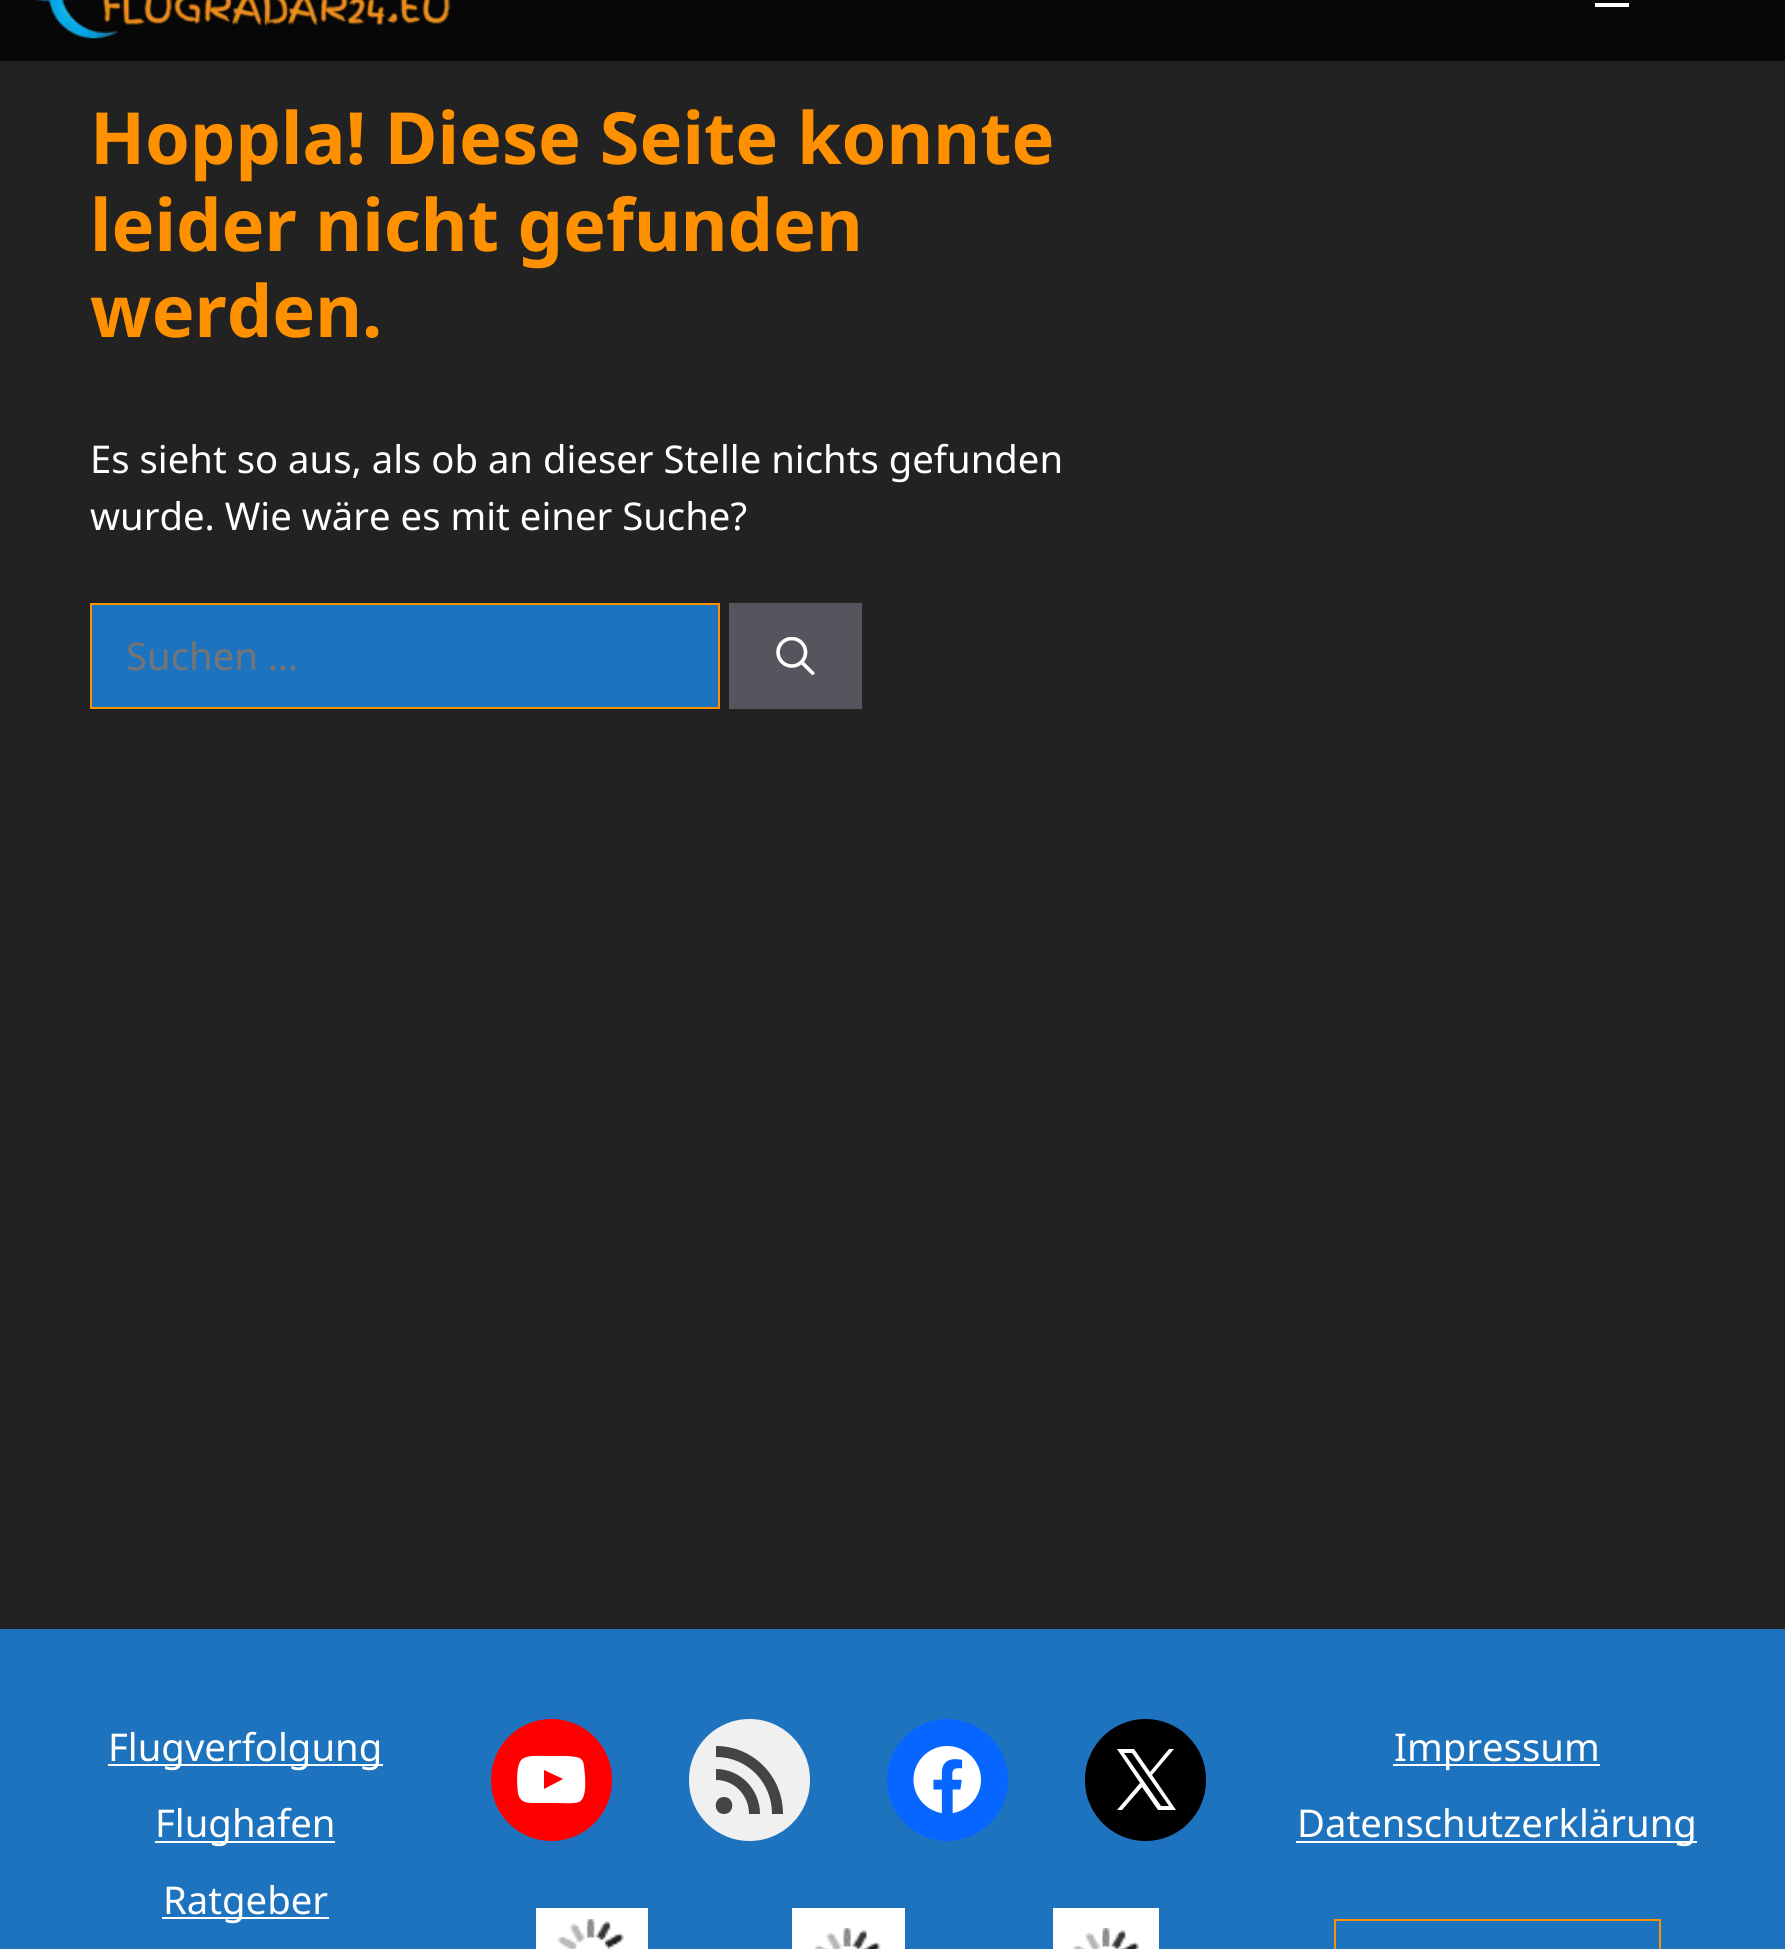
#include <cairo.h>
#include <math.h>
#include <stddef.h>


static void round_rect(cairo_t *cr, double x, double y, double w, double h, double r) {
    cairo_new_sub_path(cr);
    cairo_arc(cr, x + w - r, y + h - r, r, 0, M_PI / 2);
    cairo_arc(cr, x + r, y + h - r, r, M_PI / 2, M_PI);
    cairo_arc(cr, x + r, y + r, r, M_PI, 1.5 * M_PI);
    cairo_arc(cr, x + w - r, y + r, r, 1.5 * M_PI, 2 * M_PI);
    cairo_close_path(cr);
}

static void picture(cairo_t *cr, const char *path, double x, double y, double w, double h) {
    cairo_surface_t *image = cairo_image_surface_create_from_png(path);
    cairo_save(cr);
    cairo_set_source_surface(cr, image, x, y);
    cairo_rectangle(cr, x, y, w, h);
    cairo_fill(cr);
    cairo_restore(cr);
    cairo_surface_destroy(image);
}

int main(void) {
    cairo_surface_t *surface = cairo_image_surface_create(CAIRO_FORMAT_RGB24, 1785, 1949);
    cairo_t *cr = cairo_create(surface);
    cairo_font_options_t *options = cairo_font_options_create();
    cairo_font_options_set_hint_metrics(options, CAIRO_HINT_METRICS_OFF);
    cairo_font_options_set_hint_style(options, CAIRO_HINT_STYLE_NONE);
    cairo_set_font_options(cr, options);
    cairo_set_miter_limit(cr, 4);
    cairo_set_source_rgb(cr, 0.133, 0.133, 0.133);
    cairo_paint(cr);
    cairo_set_source_rgb(cr, 0.035, 0.031, 0.031);
    cairo_rectangle(cr, 0, 0, 1785, 61);
    cairo_fill(cr);
    picture(cr, "img1.png", 34, 0, 417, 39);
    cairo_set_source_rgb(cr, 1, 1, 1);
    cairo_rectangle(cr, 1595, 3, 34, 4);
    cairo_fill(cr);
    cairo_select_font_face(cr, "Noto Sans", CAIRO_FONT_SLANT_NORMAL, CAIRO_FONT_WEIGHT_BOLD);
    cairo_set_font_size(cr, 72);
    cairo_set_source_rgb(cr, 1, 0.569, 0);
    cairo_move_to(cr, 90, 164);
    cairo_show_text(cr, "Hoppla! Diese Seite konnte");
    cairo_move_to(cr, 90, 251);
    cairo_show_text(cr, "leider nicht gefunden");
    cairo_move_to(cr, 90, 337);
    cairo_show_text(cr, "werden.");
    cairo_select_font_face(cr, "Noto Sans", CAIRO_FONT_SLANT_NORMAL, CAIRO_FONT_WEIGHT_NORMAL);
    cairo_set_font_size(cr, 38.25);
    cairo_set_source_rgb(cr, 1, 1, 1);
    cairo_move_to(cr, 90, 473);
    cairo_show_text(cr, "Es sieht so aus, als ob an dieser Stelle nichts gefunden");
    cairo_move_to(cr, 90, 530);
    cairo_show_text(cr, "wurde. Wie wäre es mit einer Suche?");
    cairo_set_source_rgb(cr, 0.118, 0.451, 0.745);
    cairo_rectangle(cr, 91, 604, 628, 104);
    cairo_fill_preserve(cr);
    cairo_set_source_rgb(cr, 1, 0.569, 0);
    cairo_stroke(cr);
    cairo_set_source_rgb(cr, 0.459, 0.459, 0.459);
    cairo_move_to(cr, 126, 670);
    cairo_show_text(cr, "Suchen …");
    cairo_set_source_rgb(cr, 0.333, 0.333, 0.369);
    cairo_rectangle(cr, 729, 603, 133, 106);
    cairo_fill(cr);
    picture(cr, "img2.png", 776, 637, 39, 38);
    cairo_set_source_rgb(cr, 0.118, 0.451, 0.745);
    cairo_rectangle(cr, 0, 1629, 1785, 320);
    cairo_fill(cr);
    cairo_set_source_rgb(cr, 1, 1, 1);
    cairo_rectangle(cr, 108, 1764, 275, 2);
    cairo_fill(cr);
    cairo_move_to(cr, 108, 1761);
    cairo_show_text(cr, "Flugverfolgung");
    cairo_rectangle(cr, 155, 1841, 180, 2);
    cairo_fill(cr);
    cairo_move_to(cr, 155, 1837);
    cairo_show_text(cr, "Flughafen");
    cairo_rectangle(cr, 162, 1917, 167, 2);
    cairo_fill(cr);
    cairo_move_to(cr, 163, 1914);
    cairo_show_text(cr, "Ratgeber");
    cairo_set_source_rgb(cr, 1, 0, 0);
    round_rect(cr, 491, 1719, 121, 122, 60.5);
    cairo_fill(cr);
    cairo_set_source_rgb(cr, 1, 1, 1);
    cairo_new_path(cr);
    cairo_move_to(cr, 584, 1766);
    cairo_curve_to(cr, 583, 1756, 576, 1757, 567, 1756);
    cairo_line_to(cr, 546, 1756);
    cairo_curve_to(cr, 541, 1756, 529, 1755, 524, 1758);
    cairo_curve_to(cr, 515, 1761, 517, 1786, 518, 1793);
    cairo_curve_to(cr, 520, 1804, 529, 1803, 538, 1803);
    cairo_line_to(cr, 556, 1803);
    cairo_curve_to(cr, 562, 1803, 574, 1804, 579, 1802);
    cairo_curve_to(cr, 588, 1798, 585, 1774, 584, 1766);
    cairo_close_path(cr);
    cairo_move_to(cr, 544, 1789);
    cairo_line_to(cr, 544, 1770);
    cairo_line_to(cr, 563, 1779);
    cairo_close_path(cr);
    cairo_fill(cr);
    cairo_set_source_rgb(cr, 0.941, 0.941, 0.941);
    round_rect(cr, 689, 1719, 121, 122, 60.5);
    cairo_fill(cr);
    cairo_set_source_rgb(cr, 0.267, 0.267, 0.267);
    cairo_new_path(cr);
    cairo_move_to(cr, 716, 1769);
    cairo_line_to(cr, 716, 1780);
    cairo_curve_to(cr, 734, 1780, 749, 1795, 749, 1814);
    cairo_line_to(cr, 760, 1814);
    cairo_curve_to(cr, 760, 1789, 740, 1769, 716, 1769);
    cairo_close_path(cr);
    cairo_move_to(cr, 716, 1746);
    cairo_line_to(cr, 716, 1757);
    cairo_curve_to(cr, 747, 1757, 772, 1782, 772, 1814);
    cairo_line_to(cr, 783, 1814);
    cairo_curve_to(cr, 783, 1776, 753, 1746, 716, 1746);
    cairo_close_path(cr);
    cairo_move_to(cr, 724, 1797);
    cairo_curve_to(cr, 713, 1797, 713, 1814, 724, 1814);
    cairo_curve_to(cr, 735, 1814, 735, 1797, 724, 1797);
    cairo_close_path(cr);
    cairo_fill(cr);
    cairo_set_source_rgb(cr, 0.031, 0.4, 1);
    round_rect(cr, 887, 1719, 121, 122, 60.5);
    cairo_fill(cr);
    picture(cr, "img3.png", 913, 1746, 68, 68);
    cairo_set_source_rgb(cr, 0, 0, 0);
    round_rect(cr, 1085, 1719, 121, 122, 60.5);
    cairo_fill(cr);
    cairo_set_source_rgb(cr, 1, 1, 1);
    cairo_new_path(cr);
    cairo_move_to(cr, 1152, 1775);
    cairo_line_to(cr, 1174, 1749);
    cairo_line_to(cr, 1169, 1749);
    cairo_line_to(cr, 1150, 1772);
    cairo_line_to(cr, 1134, 1749);
    cairo_line_to(cr, 1117, 1749);
    cairo_line_to(cr, 1140, 1783);
    cairo_line_to(cr, 1117, 1810);
    cairo_line_to(cr, 1122, 1810);
    cairo_line_to(cr, 1142, 1787);
    cairo_line_to(cr, 1158, 1810);
    cairo_line_to(cr, 1176, 1810);
    cairo_close_path(cr);
    cairo_move_to(cr, 1145, 1783);
    cairo_line_to(cr, 1124, 1753);
    cairo_line_to(cr, 1132, 1753);
    cairo_line_to(cr, 1169, 1806);
    cairo_line_to(cr, 1161, 1806);
    cairo_close_path(cr);
    cairo_fill(cr);
    cairo_rectangle(cr, 536, 1908, 112, 41);
    cairo_fill(cr);
    picture(cr, "img4.png", 557, 1919, 67, 30);
    cairo_rectangle(cr, 792, 1908, 113, 41);
    cairo_fill(cr);
    picture(cr, "img5.png", 814, 1928, 67, 21);
    cairo_rectangle(cr, 1053, 1908, 106, 41);
    cairo_fill(cr);
    picture(cr, "img6.png", 1072, 1928, 68, 21);
    cairo_rectangle(cr, 1393, 1764, 207, 2);
    cairo_fill(cr);
    cairo_move_to(cr, 1394, 1761);
    cairo_show_text(cr, "Impressum");
    cairo_rectangle(cr, 1296, 1841, 401, 2);
    cairo_fill(cr);
    cairo_move_to(cr, 1297, 1837);
    cairo_show_text(cr, "Datenschutzerklärung");
    cairo_rectangle(cr, 1335, 1920, 325, 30);
    cairo_set_source_rgb(cr, 1, 0.569, 0);
    cairo_stroke(cr);
    cairo_surface_write_to_png(surface, "page.png");
    cairo_font_options_destroy(options);
    cairo_destroy(cr);
    cairo_surface_destroy(surface);
    return 0;
}
